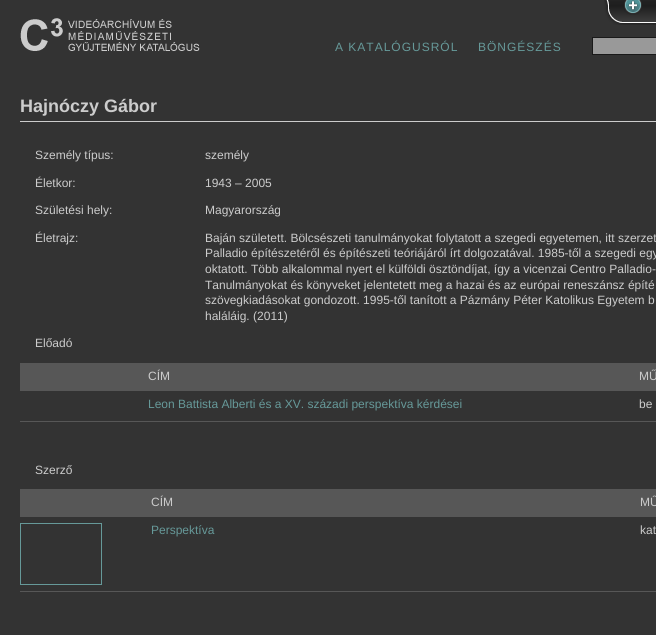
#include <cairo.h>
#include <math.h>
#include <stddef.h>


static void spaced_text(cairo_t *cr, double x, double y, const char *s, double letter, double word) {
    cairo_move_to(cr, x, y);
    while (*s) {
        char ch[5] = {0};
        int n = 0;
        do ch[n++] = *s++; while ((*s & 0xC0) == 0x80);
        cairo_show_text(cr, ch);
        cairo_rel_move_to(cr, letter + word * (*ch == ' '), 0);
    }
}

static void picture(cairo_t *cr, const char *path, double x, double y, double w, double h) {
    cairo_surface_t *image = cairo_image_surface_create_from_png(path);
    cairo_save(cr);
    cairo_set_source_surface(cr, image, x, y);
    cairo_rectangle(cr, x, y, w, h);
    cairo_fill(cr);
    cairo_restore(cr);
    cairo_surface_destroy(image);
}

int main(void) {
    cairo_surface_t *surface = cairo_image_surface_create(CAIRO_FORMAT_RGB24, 656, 635);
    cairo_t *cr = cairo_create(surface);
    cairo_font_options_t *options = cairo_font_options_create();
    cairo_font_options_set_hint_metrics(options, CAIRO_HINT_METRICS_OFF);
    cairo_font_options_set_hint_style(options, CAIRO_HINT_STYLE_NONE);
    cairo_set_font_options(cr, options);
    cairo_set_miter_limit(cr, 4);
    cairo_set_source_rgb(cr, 0.2, 0.2, 0.2);
    cairo_paint(cr);
    picture(cr, "img1.png", 604, 0, 19, 25);
    picture(cr, "img2.png", 623, 0, 33, 25);
    picture(cr, "img3.png", 624, 0, 18, 15);
    picture(cr, "img4.png", 20, 18, 180, 33);
    cairo_select_font_face(cr, "Liberation Sans", CAIRO_FONT_SLANT_NORMAL, CAIRO_FONT_WEIGHT_NORMAL);
    cairo_set_font_size(cr, 12);
    cairo_set_source_rgb(cr, 0.4, 0.6, 0.6);
    spaced_text(cr, 335, 51, "A KATALÓGUSRÓL", 1, 0);
    spaced_text(cr, 478, 51, "BÖNGÉSZÉS", 1, 0);
    cairo_set_source_rgb(cr, 0.6, 0.6, 0.6);
    cairo_rectangle(cr, 592.5, 37.5, 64, 17);
    cairo_fill_preserve(cr);
    cairo_set_source_rgb(cr, 0.102, 0.102, 0.102);
    cairo_set_line_width(cr, 1);
    cairo_stroke(cr);
    cairo_set_source_rgb(cr, 0.8, 0.8, 0.8);
    cairo_rectangle(cr, 20, 121, 636, 1);
    cairo_fill(cr);
    cairo_select_font_face(cr, "Liberation Sans", CAIRO_FONT_SLANT_NORMAL, CAIRO_FONT_WEIGHT_BOLD);
    cairo_set_font_size(cr, 18);
    cairo_move_to(cr, 20, 112);
    cairo_show_text(cr, "Hajnóczy Gábor");
    cairo_select_font_face(cr, "Liberation Sans", CAIRO_FONT_SLANT_NORMAL, CAIRO_FONT_WEIGHT_NORMAL);
    cairo_set_font_size(cr, 12);
    cairo_move_to(cr, 35, 159);
    cairo_show_text(cr, "Személy típus:");
    cairo_move_to(cr, 205, 159);
    cairo_show_text(cr, "személy");
    cairo_move_to(cr, 35, 187);
    cairo_show_text(cr, "Életkor:");
    cairo_move_to(cr, 205, 187);
    cairo_show_text(cr, "1943 – 2005");
    cairo_move_to(cr, 35, 214);
    cairo_show_text(cr, "Születési hely:");
    cairo_move_to(cr, 205, 214);
    cairo_show_text(cr, "Magyarország");
    cairo_move_to(cr, 35, 242);
    cairo_show_text(cr, "Életrajz:");
    cairo_move_to(cr, 205, 242);
    cairo_show_text(cr, "Baján született. Bölcsészeti tanulmányokat folytatott a szegedi egyetemen, itt szerzet");
    cairo_move_to(cr, 205, 257);
    cairo_show_text(cr, "Palladio építészetéről és építészeti teóriájáról írt dolgozatával. 1985-től a szegedi egy");
    cairo_move_to(cr, 205, 273);
    cairo_show_text(cr, "oktatott. Több alkalommal nyert el külföldi ösztöndíjat, így a vicenzai Centro Palladio-");
    cairo_move_to(cr, 205, 289);
    cairo_show_text(cr, "Tanulmányokat és könyveket jelentetett meg a hazai és az európai reneszánsz építé");
    cairo_move_to(cr, 205, 304);
    cairo_show_text(cr, "szövegkiadásokat gondozott. 1995-től tanított a Pázmány Péter Katolikus Egyetem b");
    cairo_move_to(cr, 205, 320);
    cairo_show_text(cr, "haláláig. (2011)");
    cairo_move_to(cr, 35, 347);
    cairo_show_text(cr, "Előadó");
    cairo_set_source_rgb(cr, 0.341, 0.341, 0.341);
    cairo_rectangle(cr, 20, 363, 636, 28);
    cairo_fill(cr);
    cairo_set_source_rgb(cr, 0.8, 0.8, 0.8);
    cairo_move_to(cr, 148, 380);
    cairo_show_text(cr, "CÍM");
    cairo_move_to(cr, 639, 380);
    cairo_show_text(cr, "MŰ");
    cairo_set_source_rgb(cr, 0.341, 0.341, 0.341);
    cairo_rectangle(cr, 20, 421, 636, 1);
    cairo_fill(cr);
    cairo_set_source_rgb(cr, 0.4, 0.6, 0.6);
    cairo_move_to(cr, 148, 408);
    cairo_show_text(cr, "Leon Battista Alberti és a XV. századi perspektíva kérdései");
    cairo_set_source_rgb(cr, 0.8, 0.8, 0.8);
    cairo_move_to(cr, 639, 408);
    cairo_show_text(cr, "be");
    cairo_move_to(cr, 35, 474);
    cairo_show_text(cr, "Szerző");
    cairo_set_source_rgb(cr, 0.341, 0.341, 0.341);
    cairo_rectangle(cr, 20, 489, 636, 28);
    cairo_fill(cr);
    cairo_set_source_rgb(cr, 0.8, 0.8, 0.8);
    cairo_move_to(cr, 151, 506);
    cairo_show_text(cr, "CÍM");
    cairo_move_to(cr, 640, 506);
    cairo_show_text(cr, "MŰ");
    cairo_set_source_rgb(cr, 0.341, 0.341, 0.341);
    cairo_rectangle(cr, 20, 591, 636, 1);
    cairo_fill(cr);
    cairo_rectangle(cr, 20.5, 523.5, 81, 61);
    cairo_set_source_rgb(cr, 0.4, 0.6, 0.6);
    cairo_stroke(cr);
    cairo_move_to(cr, 151, 534);
    cairo_show_text(cr, "Perspektíva");
    cairo_set_source_rgb(cr, 0.8, 0.8, 0.8);
    cairo_move_to(cr, 640, 534);
    cairo_show_text(cr, "kat");
    cairo_surface_write_to_png(surface, "page.png");
    cairo_font_options_destroy(options);
    cairo_destroy(cr);
    cairo_surface_destroy(surface);
    return 0;
}
